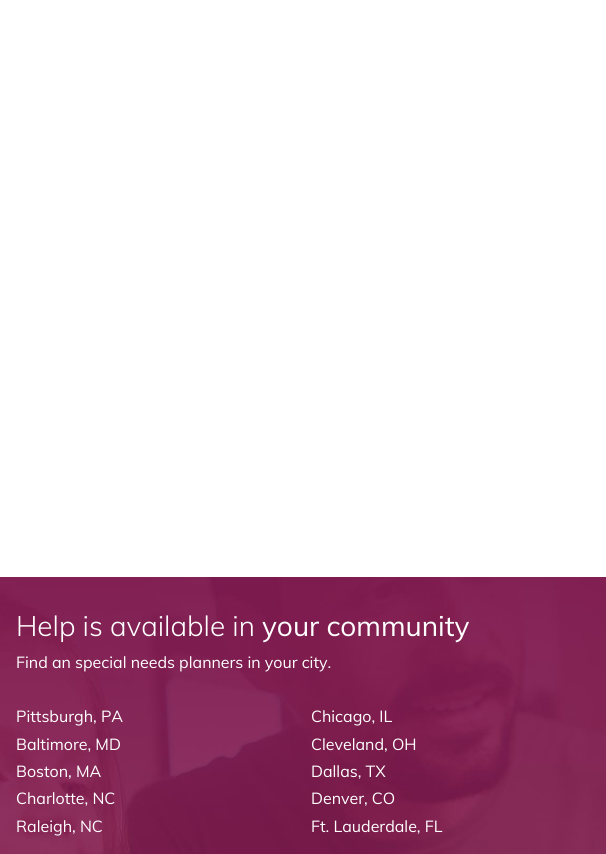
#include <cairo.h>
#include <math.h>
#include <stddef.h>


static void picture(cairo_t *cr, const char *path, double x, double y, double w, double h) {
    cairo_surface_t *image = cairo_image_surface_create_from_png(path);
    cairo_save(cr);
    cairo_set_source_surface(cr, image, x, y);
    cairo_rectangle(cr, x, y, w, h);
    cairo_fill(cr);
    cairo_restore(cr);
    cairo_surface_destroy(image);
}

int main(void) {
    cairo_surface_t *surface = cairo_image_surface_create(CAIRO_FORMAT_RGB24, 606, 854);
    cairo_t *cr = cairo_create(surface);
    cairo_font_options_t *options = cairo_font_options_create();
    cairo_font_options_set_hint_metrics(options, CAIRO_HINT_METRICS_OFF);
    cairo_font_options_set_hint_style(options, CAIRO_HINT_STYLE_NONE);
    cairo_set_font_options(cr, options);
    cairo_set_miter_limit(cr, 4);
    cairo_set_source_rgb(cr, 1, 1, 1);
    cairo_paint(cr);
    picture(cr, "img1.png", 0, 577, 606, 277);
    cairo_select_font_face(cr, "Muli Light", CAIRO_FONT_SLANT_NORMAL, CAIRO_FONT_WEIGHT_NORMAL);
    cairo_set_font_size(cr, 28);
    cairo_set_source_rgb(cr, 1, 1, 1);
    cairo_move_to(cr, 16, 636);
    cairo_show_text(cr, "Help is available in");
    cairo_select_font_face(cr, "Muli", CAIRO_FONT_SLANT_NORMAL, CAIRO_FONT_WEIGHT_NORMAL);
    cairo_move_to(cr, 262, 636);
    cairo_show_text(cr, "your community");
    cairo_set_font_size(cr, 16);
    cairo_move_to(cr, 16, 668);
    cairo_show_text(cr, "Find an special needs planners in your city.");
    cairo_move_to(cr, 16, 722);
    cairo_show_text(cr, "Pittsburgh, PA");
    cairo_move_to(cr, 16, 750);
    cairo_show_text(cr, "Baltimore, MD");
    cairo_move_to(cr, 16, 777);
    cairo_show_text(cr, "Boston, MA");
    cairo_move_to(cr, 16, 804);
    cairo_show_text(cr, "Charlotte, NC");
    cairo_move_to(cr, 16, 832);
    cairo_show_text(cr, "Raleigh, NC");
    cairo_move_to(cr, 311, 722);
    cairo_show_text(cr, "Chicago, IL");
    cairo_move_to(cr, 311, 750);
    cairo_show_text(cr, "Cleveland, OH");
    cairo_move_to(cr, 311, 777);
    cairo_show_text(cr, "Dallas, TX");
    cairo_move_to(cr, 311, 804);
    cairo_show_text(cr, "Denver, CO");
    cairo_move_to(cr, 311, 832);
    cairo_show_text(cr, "Ft. Lauderdale, FL");
    cairo_surface_write_to_png(surface, "page.png");
    cairo_font_options_destroy(options);
    cairo_destroy(cr);
    cairo_surface_destroy(surface);
    return 0;
}
